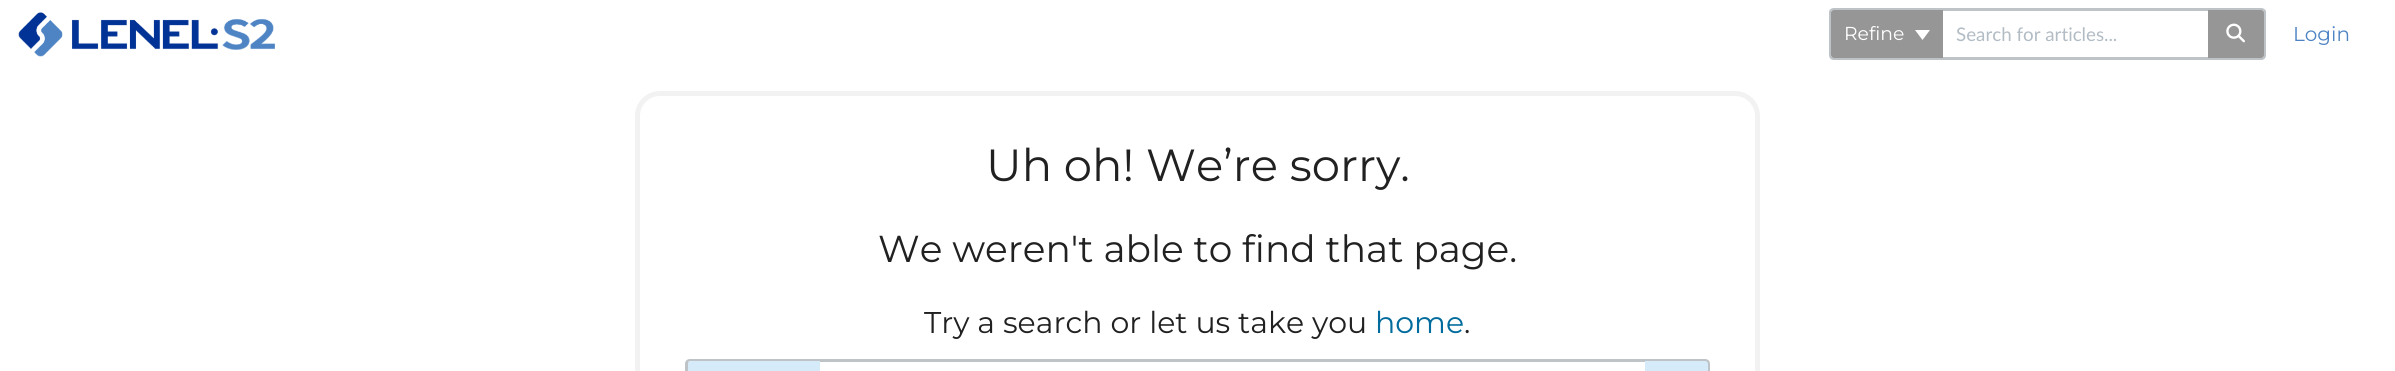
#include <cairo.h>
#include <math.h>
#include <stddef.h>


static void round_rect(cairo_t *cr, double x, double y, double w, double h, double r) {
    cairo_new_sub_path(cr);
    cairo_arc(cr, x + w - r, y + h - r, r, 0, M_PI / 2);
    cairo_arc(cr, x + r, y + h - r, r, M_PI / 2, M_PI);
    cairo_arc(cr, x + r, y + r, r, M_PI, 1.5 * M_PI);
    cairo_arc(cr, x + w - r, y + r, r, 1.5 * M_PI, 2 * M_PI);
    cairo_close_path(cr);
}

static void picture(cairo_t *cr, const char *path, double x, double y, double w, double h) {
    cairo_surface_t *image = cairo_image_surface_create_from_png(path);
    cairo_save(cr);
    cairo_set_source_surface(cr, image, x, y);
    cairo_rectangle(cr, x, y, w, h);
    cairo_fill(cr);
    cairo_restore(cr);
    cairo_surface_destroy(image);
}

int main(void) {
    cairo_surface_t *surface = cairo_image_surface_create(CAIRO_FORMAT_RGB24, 2395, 371);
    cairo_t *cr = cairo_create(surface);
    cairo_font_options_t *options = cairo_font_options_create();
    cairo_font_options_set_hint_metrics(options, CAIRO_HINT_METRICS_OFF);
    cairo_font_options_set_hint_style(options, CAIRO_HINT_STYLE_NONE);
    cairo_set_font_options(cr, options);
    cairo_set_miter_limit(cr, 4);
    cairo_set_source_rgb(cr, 1, 1, 1);
    cairo_paint(cr);
    picture(cr, "img1.png", 18, 12, 257, 45);
    cairo_rectangle(cr, 1940.5, 9.5, 269, 49);
    cairo_set_source_rgb(cr, 0.741, 0.765, 0.78);
    cairo_set_line_width(cr, 3);
    cairo_stroke(cr);
    cairo_set_source_rgb(cr, 0.588, 0.588, 0.588);
    cairo_new_path(cr);
    cairo_move_to(cr, 1833.5, 10);
    cairo_line_to(cr, 1943, 10);
    cairo_line_to(cr, 1943, 58);
    cairo_line_to(cr, 1833.5, 58);
    cairo_curve_to(cr, 1832, 58, 1831, 57, 1831, 55.5);
    cairo_line_to(cr, 1831, 12.5);
    cairo_curve_to(cr, 1831, 11, 1832, 10, 1833.5, 10);
    cairo_close_path(cr);
    cairo_fill(cr);
    cairo_set_source_rgb(cr, 0.741, 0.765, 0.78);
    cairo_set_fill_rule(cr, CAIRO_FILL_RULE_EVEN_ODD);
    cairo_new_path(cr);
    cairo_move_to(cr, 1834, 8);
    cairo_line_to(cr, 1942, 8);
    cairo_line_to(cr, 1942, 60);
    cairo_line_to(cr, 1834, 60);
    cairo_curve_to(cr, 1831, 60, 1829, 58, 1829, 55);
    cairo_line_to(cr, 1829, 12);
    cairo_curve_to(cr, 1829, 10, 1831, 8, 1834, 8);
    cairo_close_path(cr);
    cairo_move_to(cr, 1834, 10);
    cairo_line_to(cr, 1942, 10);
    cairo_line_to(cr, 1942, 58);
    cairo_line_to(cr, 1834, 58);
    cairo_curve_to(cr, 1832, 58, 1831, 56, 1831, 55);
    cairo_line_to(cr, 1831, 12);
    cairo_curve_to(cr, 1831, 11, 1832, 10, 1834, 10);
    cairo_close_path(cr);
    cairo_fill(cr);
    cairo_select_font_face(cr, "Montserrat Thin", CAIRO_FONT_SLANT_NORMAL, CAIRO_FONT_WEIGHT_NORMAL);
    cairo_set_font_size(cr, 18.75);
    cairo_set_source_rgb(cr, 1, 1, 1);
    cairo_move_to(cr, 1844, 40);
    cairo_show_text(cr, "Refine");
    cairo_set_fill_rule(cr, CAIRO_FILL_RULE_WINDING);
    cairo_new_path(cr);
    cairo_move_to(cr, 1915, 30);
    cairo_line_to(cr, 1930, 30);
    cairo_line_to(cr, 1922.5, 40);
    cairo_close_path(cr);
    cairo_fill(cr);
    cairo_select_font_face(cr, "Lato", CAIRO_FONT_SLANT_NORMAL, CAIRO_FONT_WEIGHT_NORMAL);
    cairo_set_source_rgb(cr, 0.698, 0.737, 0.773);
    cairo_move_to(cr, 1956, 41);
    cairo_show_text(cr, "Search for articles...");
    cairo_set_source_rgb(cr, 0.588, 0.588, 0.588);
    cairo_new_path(cr);
    cairo_move_to(cr, 2208, 10);
    cairo_line_to(cr, 2261.5, 10);
    cairo_curve_to(cr, 2263, 10, 2264, 11, 2264, 12.5);
    cairo_line_to(cr, 2264, 55.5);
    cairo_curve_to(cr, 2264, 57, 2263, 58, 2261.5, 58);
    cairo_line_to(cr, 2208, 58);
    cairo_close_path(cr);
    cairo_fill(cr);
    cairo_set_source_rgb(cr, 0.741, 0.765, 0.78);
    cairo_set_fill_rule(cr, CAIRO_FILL_RULE_EVEN_ODD);
    cairo_new_path(cr);
    cairo_move_to(cr, 2208, 8);
    cairo_line_to(cr, 2261, 8);
    cairo_curve_to(cr, 2264, 8, 2266, 10, 2266, 12);
    cairo_line_to(cr, 2266, 55);
    cairo_curve_to(cr, 2266, 58, 2264, 60, 2261, 60);
    cairo_line_to(cr, 2208, 60);
    cairo_close_path(cr);
    cairo_move_to(cr, 2208, 10);
    cairo_line_to(cr, 2261, 10);
    cairo_curve_to(cr, 2263, 10, 2264, 11, 2264, 12);
    cairo_line_to(cr, 2264, 55);
    cairo_curve_to(cr, 2264, 56, 2263, 58, 2261, 58);
    cairo_line_to(cr, 2208, 58);
    cairo_close_path(cr);
    cairo_fill(cr);
    picture(cr, "img2.png", 2226, 23, 19, 20);
    cairo_select_font_face(cr, "Montserrat Thin", CAIRO_FONT_SLANT_NORMAL, CAIRO_FONT_WEIGHT_NORMAL);
    cairo_set_font_size(cr, 20);
    cairo_set_source_rgb(cr, 0.306, 0.518, 0.769);
    cairo_move_to(cr, 2293, 41);
    cairo_show_text(cr, "Login");
    round_rect(cr, 637.5, 93.5, 1120, 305, 22.5);
    cairo_set_source_rgb(cr, 0.949, 0.949, 0.949);
    cairo_set_line_width(cr, 5);
    cairo_stroke(cr);
    cairo_set_font_size(cr, 45);
    cairo_set_source_rgb(cr, 0.129, 0.129, 0.129);
    cairo_move_to(cr, 986, 181);
    cairo_show_text(cr, "Uh oh! We’re sorry.");
    cairo_set_font_size(cr, 37.5);
    cairo_move_to(cr, 878, 262);
    cairo_show_text(cr, "We weren't able to find that page.");
    cairo_set_font_size(cr, 30);
    cairo_move_to(cr, 924, 333);
    cairo_show_text(cr, "Try a search or let us take you");
    cairo_set_source_rgb(cr, 0, 0.42, 0.612);
    cairo_move_to(cr, 1375, 333);
    cairo_show_text(cr, "home");
    cairo_set_source_rgb(cr, 0.129, 0.129, 0.129);
    cairo_move_to(cr, 1464, 333);
    cairo_show_text(cr, ".");
    cairo_rectangle(cr, 817.5, 360.5, 830, 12);
    cairo_set_source_rgb(cr, 0.741, 0.765, 0.78);
    cairo_set_line_width(cr, 3);
    cairo_stroke(cr);
    cairo_set_source_rgb(cr, 0.839, 0.918, 0.973);
    cairo_new_path(cr);
    cairo_move_to(cr, 690.5, 361);
    cairo_line_to(cr, 820, 361);
    cairo_line_to(cr, 820, 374);
    cairo_line_to(cr, 690.5, 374);
    cairo_curve_to(cr, 689, 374, 688, 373, 688, 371.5);
    cairo_line_to(cr, 688, 363.5);
    cairo_curve_to(cr, 688, 362, 689, 361, 690.5, 361);
    cairo_close_path(cr);
    cairo_fill(cr);
    cairo_set_source_rgb(cr, 0.741, 0.765, 0.78);
    cairo_new_path(cr);
    cairo_move_to(cr, 690, 359);
    cairo_line_to(cr, 820, 359);
    cairo_line_to(cr, 820, 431);
    cairo_line_to(cr, 690, 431);
    cairo_curve_to(cr, 687, 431, 685, 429, 685, 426);
    cairo_line_to(cr, 685, 364);
    cairo_curve_to(cr, 685, 361, 687, 359, 690, 359);
    cairo_close_path(cr);
    cairo_move_to(cr, 690, 361);
    cairo_line_to(cr, 820, 361);
    cairo_line_to(cr, 820, 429);
    cairo_line_to(cr, 690, 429);
    cairo_curve_to(cr, 689, 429, 688, 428, 688, 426);
    cairo_line_to(cr, 688, 364);
    cairo_curve_to(cr, 688, 362, 689, 361, 690, 361);
    cairo_close_path(cr);
    cairo_fill(cr);
    cairo_set_source_rgb(cr, 0.839, 0.918, 0.973);
    cairo_new_path(cr);
    cairo_move_to(cr, 1645, 361);
    cairo_line_to(cr, 1705.5, 361);
    cairo_curve_to(cr, 1707, 361, 1708, 362, 1708, 363.5);
    cairo_line_to(cr, 1708, 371.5);
    cairo_curve_to(cr, 1708, 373, 1707, 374, 1705.5, 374);
    cairo_line_to(cr, 1645, 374);
    cairo_close_path(cr);
    cairo_fill(cr);
    cairo_set_source_rgb(cr, 0.741, 0.765, 0.78);
    cairo_new_path(cr);
    cairo_move_to(cr, 1645, 359);
    cairo_line_to(cr, 1705, 359);
    cairo_curve_to(cr, 1708, 359, 1710, 361, 1710, 364);
    cairo_line_to(cr, 1710, 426);
    cairo_curve_to(cr, 1710, 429, 1708, 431, 1705, 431);
    cairo_line_to(cr, 1645, 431);
    cairo_close_path(cr);
    cairo_move_to(cr, 1645, 361);
    cairo_line_to(cr, 1705, 361);
    cairo_curve_to(cr, 1706, 361, 1708, 362, 1708, 364);
    cairo_line_to(cr, 1708, 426);
    cairo_curve_to(cr, 1708, 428, 1706, 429, 1705, 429);
    cairo_line_to(cr, 1645, 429);
    cairo_close_path(cr);
    cairo_fill(cr);
    cairo_surface_write_to_png(surface, "page.png");
    cairo_font_options_destroy(options);
    cairo_destroy(cr);
    cairo_surface_destroy(surface);
    return 0;
}
